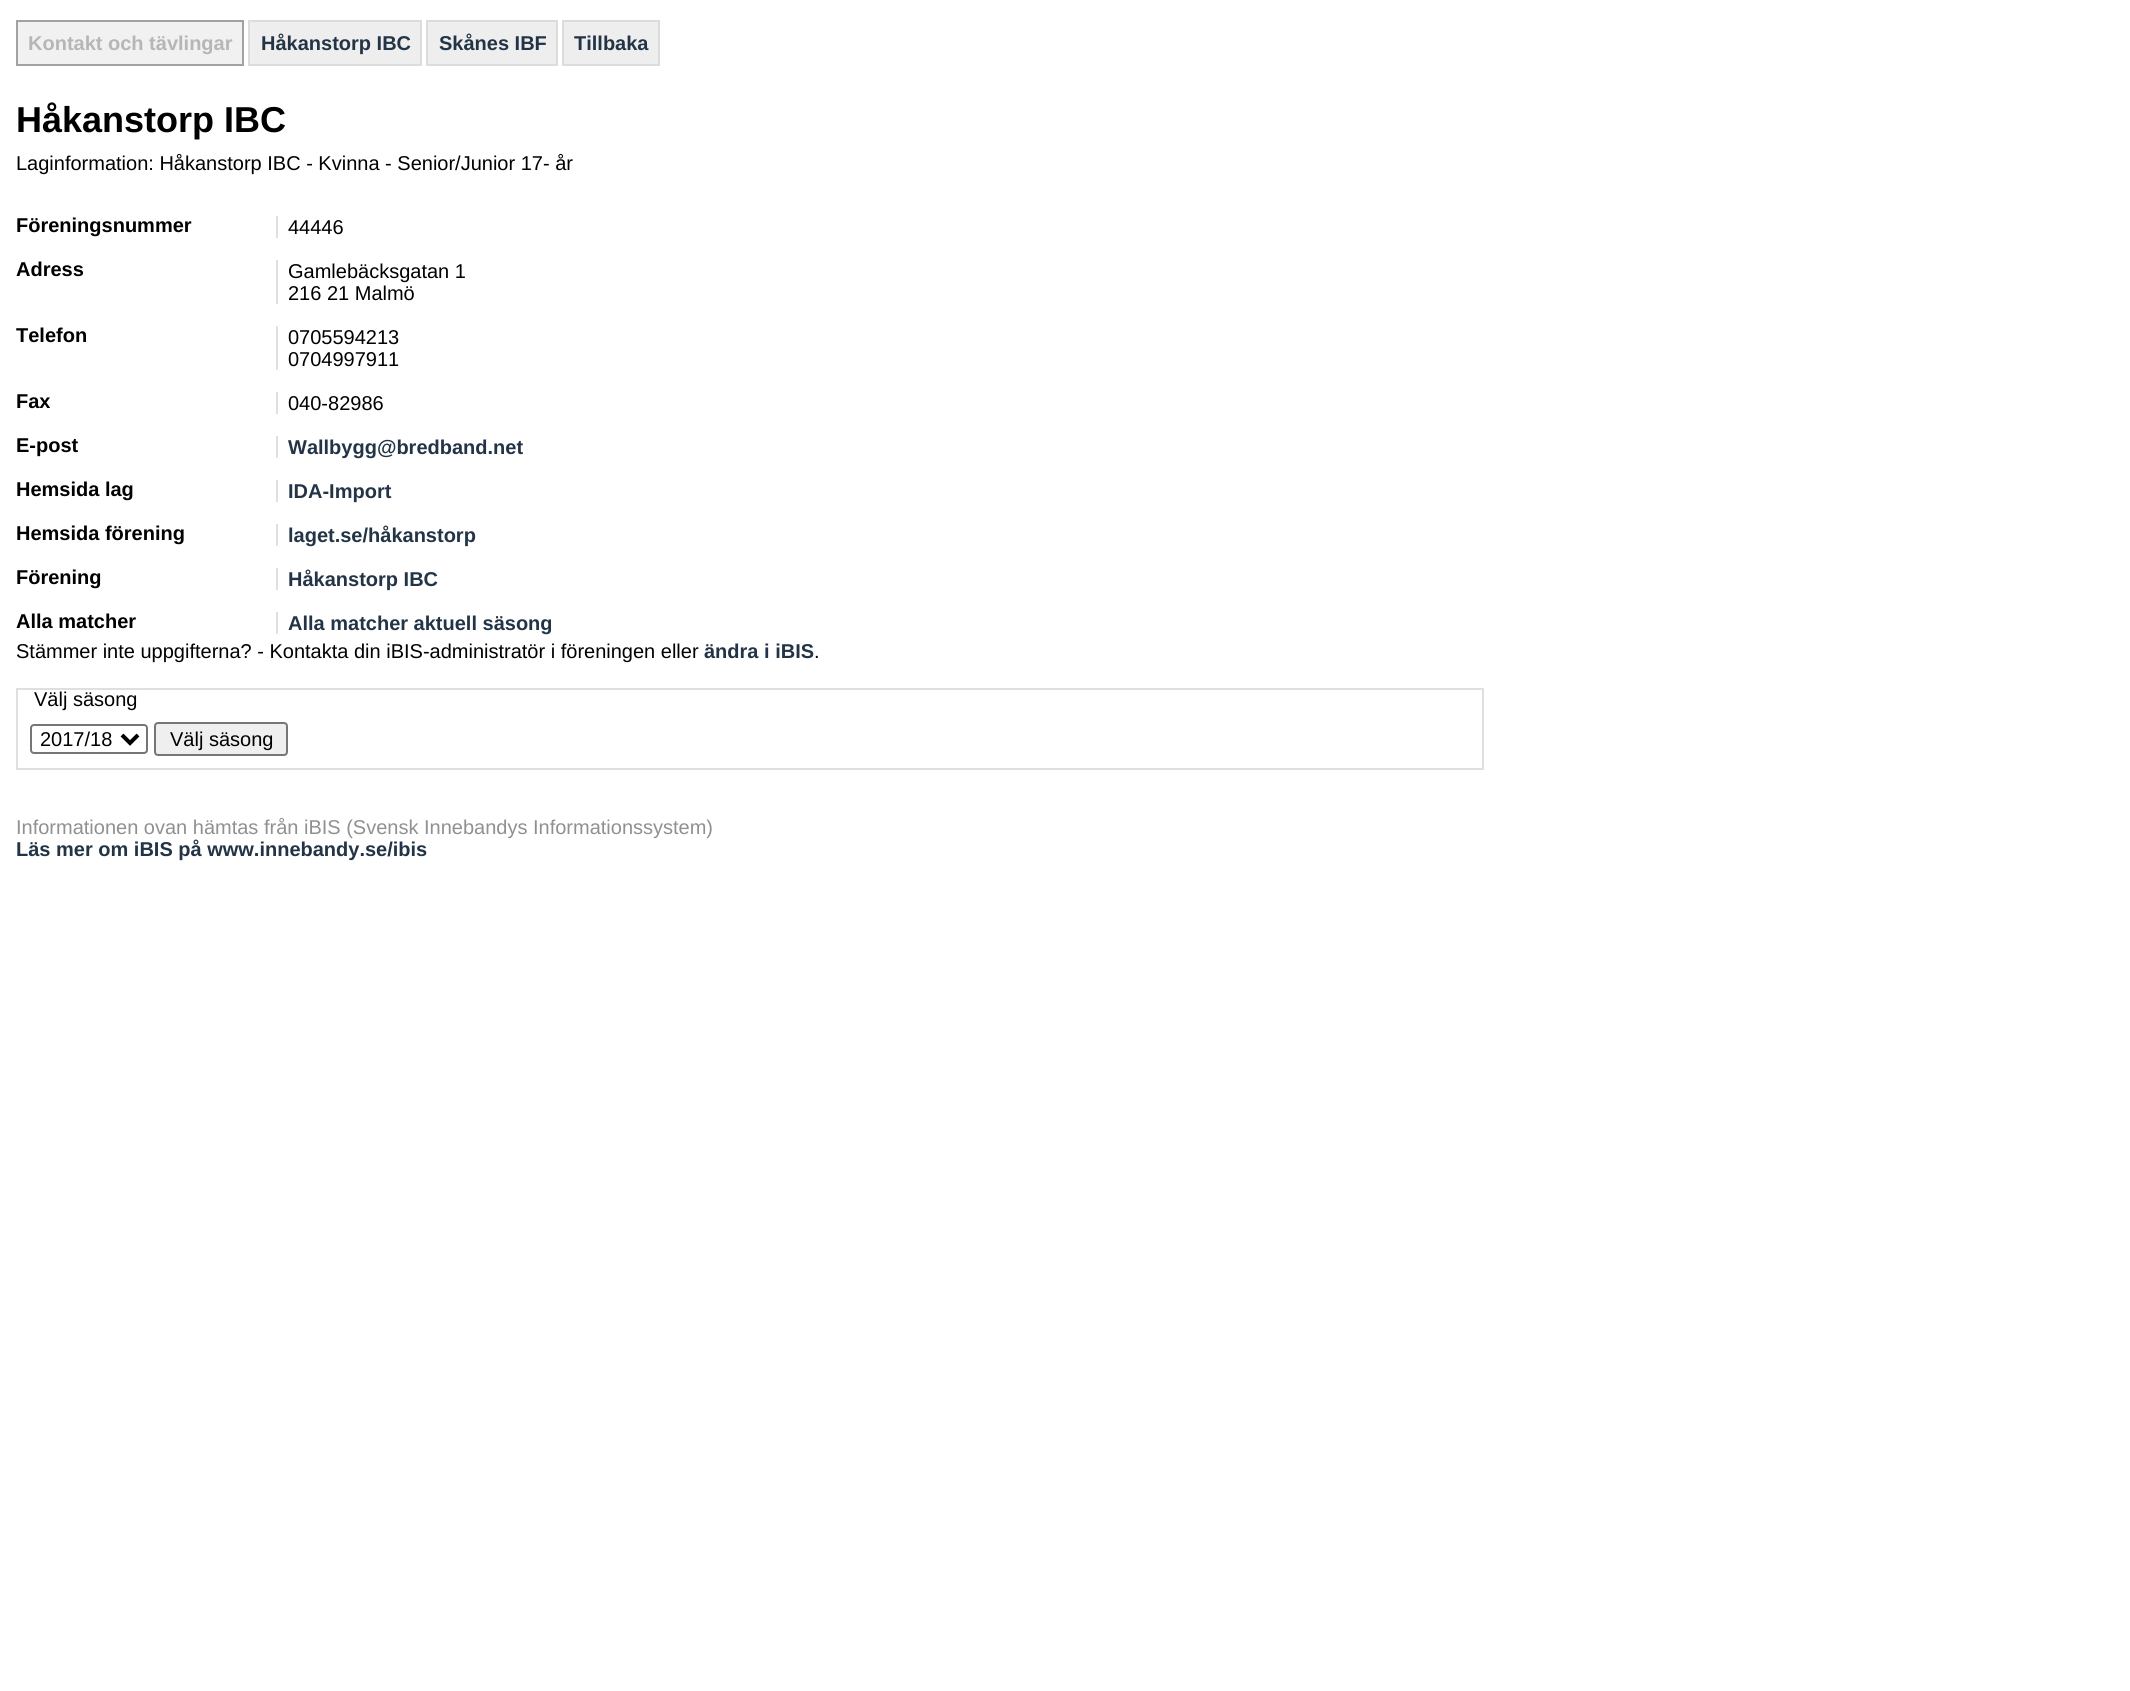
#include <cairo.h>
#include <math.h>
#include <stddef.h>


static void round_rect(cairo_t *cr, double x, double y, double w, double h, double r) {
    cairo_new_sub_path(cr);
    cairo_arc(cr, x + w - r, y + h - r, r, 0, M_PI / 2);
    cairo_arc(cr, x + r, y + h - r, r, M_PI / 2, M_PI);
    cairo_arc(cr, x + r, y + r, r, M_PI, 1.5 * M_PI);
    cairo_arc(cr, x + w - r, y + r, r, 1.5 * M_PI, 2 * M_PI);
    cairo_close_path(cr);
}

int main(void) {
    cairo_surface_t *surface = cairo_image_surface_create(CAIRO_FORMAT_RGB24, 2130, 1691);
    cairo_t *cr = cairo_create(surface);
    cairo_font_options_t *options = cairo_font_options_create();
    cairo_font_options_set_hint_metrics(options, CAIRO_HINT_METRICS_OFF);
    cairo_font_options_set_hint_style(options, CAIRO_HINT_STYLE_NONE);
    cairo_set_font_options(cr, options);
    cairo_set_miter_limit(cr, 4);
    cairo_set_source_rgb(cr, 1, 1, 1);
    cairo_paint(cr);
    cairo_set_source_rgb(cr, 0.945, 0.945, 0.945);
    cairo_rectangle(cr, 17, 21, 226, 44);
    cairo_fill_preserve(cr);
    cairo_set_source_rgb(cr, 0.635, 0.635, 0.635);
    cairo_stroke(cr);
    cairo_select_font_face(cr, "Liberation Sans", CAIRO_FONT_SLANT_NORMAL, CAIRO_FONT_WEIGHT_BOLD);
    cairo_set_font_size(cr, 20);
    cairo_set_source_rgb(cr, 0.714, 0.714, 0.714);
    cairo_move_to(cr, 28, 50);
    cairo_show_text(cr, "Kontakt och tävlingar");
    cairo_set_source_rgb(cr, 0.933, 0.933, 0.933);
    cairo_rectangle(cr, 249, 21, 172, 44);
    cairo_fill_preserve(cr);
    cairo_set_source_rgb(cr, 0.863, 0.863, 0.863);
    cairo_stroke(cr);
    cairo_set_source_rgb(cr, 0.137, 0.204, 0.275);
    cairo_move_to(cr, 261, 50);
    cairo_show_text(cr, "Håkanstorp IBC");
    cairo_set_source_rgb(cr, 0.933, 0.933, 0.933);
    cairo_rectangle(cr, 427, 21, 130, 44);
    cairo_fill_preserve(cr);
    cairo_set_source_rgb(cr, 0.863, 0.863, 0.863);
    cairo_stroke(cr);
    cairo_set_source_rgb(cr, 0.137, 0.204, 0.275);
    cairo_move_to(cr, 439, 50);
    cairo_show_text(cr, "Skånes IBF");
    cairo_set_source_rgb(cr, 0.933, 0.933, 0.933);
    cairo_rectangle(cr, 563, 21, 96, 44);
    cairo_fill_preserve(cr);
    cairo_set_source_rgb(cr, 0.863, 0.863, 0.863);
    cairo_stroke(cr);
    cairo_set_source_rgb(cr, 0.137, 0.204, 0.275);
    cairo_move_to(cr, 574, 50);
    cairo_show_text(cr, "Tillbaka");
    cairo_set_font_size(cr, 36);
    cairo_set_source_rgb(cr, 0, 0, 0);
    cairo_move_to(cr, 16, 132);
    cairo_show_text(cr, "Håkanstorp IBC");
    cairo_select_font_face(cr, "Liberation Sans", CAIRO_FONT_SLANT_NORMAL, CAIRO_FONT_WEIGHT_NORMAL);
    cairo_set_font_size(cr, 20);
    cairo_move_to(cr, 16, 170);
    cairo_show_text(cr, "Laginformation: Håkanstorp IBC - Kvinna - Senior/Junior 17- år");
    cairo_select_font_face(cr, "Liberation Sans", CAIRO_FONT_SLANT_NORMAL, CAIRO_FONT_WEIGHT_BOLD);
    cairo_move_to(cr, 16, 232);
    cairo_show_text(cr, "Föreningsnummer");
    cairo_set_source_rgb(cr, 0.875, 0.875, 0.875);
    cairo_rectangle(cr, 276, 216, 2, 22);
    cairo_fill(cr);
    cairo_select_font_face(cr, "Liberation Sans", CAIRO_FONT_SLANT_NORMAL, CAIRO_FONT_WEIGHT_NORMAL);
    cairo_set_source_rgb(cr, 0, 0, 0);
    cairo_move_to(cr, 288, 234);
    cairo_show_text(cr, "44446");
    cairo_select_font_face(cr, "Liberation Sans", CAIRO_FONT_SLANT_NORMAL, CAIRO_FONT_WEIGHT_BOLD);
    cairo_move_to(cr, 16, 276);
    cairo_show_text(cr, "Adress");
    cairo_set_source_rgb(cr, 0.875, 0.875, 0.875);
    cairo_rectangle(cr, 276, 260, 2, 44);
    cairo_fill(cr);
    cairo_select_font_face(cr, "Liberation Sans", CAIRO_FONT_SLANT_NORMAL, CAIRO_FONT_WEIGHT_NORMAL);
    cairo_set_source_rgb(cr, 0, 0, 0);
    cairo_move_to(cr, 288, 278);
    cairo_show_text(cr, "Gamlebäcksgatan 1");
    cairo_move_to(cr, 288, 300);
    cairo_show_text(cr, "216 21 Malmö");
    cairo_select_font_face(cr, "Liberation Sans", CAIRO_FONT_SLANT_NORMAL, CAIRO_FONT_WEIGHT_BOLD);
    cairo_move_to(cr, 16, 342);
    cairo_show_text(cr, "Telefon");
    cairo_set_source_rgb(cr, 0.875, 0.875, 0.875);
    cairo_rectangle(cr, 276, 326, 2, 44);
    cairo_fill(cr);
    cairo_select_font_face(cr, "Liberation Sans", CAIRO_FONT_SLANT_NORMAL, CAIRO_FONT_WEIGHT_NORMAL);
    cairo_set_source_rgb(cr, 0, 0, 0);
    cairo_move_to(cr, 288, 344);
    cairo_show_text(cr, "0705594213");
    cairo_move_to(cr, 288, 366);
    cairo_show_text(cr, "0704997911");
    cairo_select_font_face(cr, "Liberation Sans", CAIRO_FONT_SLANT_NORMAL, CAIRO_FONT_WEIGHT_BOLD);
    cairo_move_to(cr, 16, 408);
    cairo_show_text(cr, "Fax");
    cairo_set_source_rgb(cr, 0.875, 0.875, 0.875);
    cairo_rectangle(cr, 276, 392, 2, 22);
    cairo_fill(cr);
    cairo_select_font_face(cr, "Liberation Sans", CAIRO_FONT_SLANT_NORMAL, CAIRO_FONT_WEIGHT_NORMAL);
    cairo_set_source_rgb(cr, 0, 0, 0);
    cairo_move_to(cr, 288, 410);
    cairo_show_text(cr, "040-82986");
    cairo_select_font_face(cr, "Liberation Sans", CAIRO_FONT_SLANT_NORMAL, CAIRO_FONT_WEIGHT_BOLD);
    cairo_move_to(cr, 16, 452);
    cairo_show_text(cr, "E-post");
    cairo_set_source_rgb(cr, 0.875, 0.875, 0.875);
    cairo_rectangle(cr, 276, 436, 2, 22);
    cairo_fill(cr);
    cairo_set_source_rgb(cr, 0.137, 0.204, 0.275);
    cairo_move_to(cr, 288, 454);
    cairo_show_text(cr, "Wallbygg@bredband.net");
    cairo_set_source_rgb(cr, 0, 0, 0);
    cairo_move_to(cr, 16, 496);
    cairo_show_text(cr, "Hemsida lag");
    cairo_set_source_rgb(cr, 0.875, 0.875, 0.875);
    cairo_rectangle(cr, 276, 480, 2, 22);
    cairo_fill(cr);
    cairo_set_source_rgb(cr, 0.137, 0.204, 0.275);
    cairo_move_to(cr, 288, 498);
    cairo_show_text(cr, "IDA-Import");
    cairo_set_source_rgb(cr, 0, 0, 0);
    cairo_move_to(cr, 16, 540);
    cairo_show_text(cr, "Hemsida förening");
    cairo_set_source_rgb(cr, 0.875, 0.875, 0.875);
    cairo_rectangle(cr, 276, 524, 2, 22);
    cairo_fill(cr);
    cairo_set_source_rgb(cr, 0.137, 0.204, 0.275);
    cairo_move_to(cr, 288, 542);
    cairo_show_text(cr, "laget.se/håkanstorp");
    cairo_set_source_rgb(cr, 0, 0, 0);
    cairo_move_to(cr, 16, 584);
    cairo_show_text(cr, "Förening");
    cairo_set_source_rgb(cr, 0.875, 0.875, 0.875);
    cairo_rectangle(cr, 276, 568, 2, 22);
    cairo_fill(cr);
    cairo_set_source_rgb(cr, 0.137, 0.204, 0.275);
    cairo_move_to(cr, 288, 586);
    cairo_show_text(cr, "Håkanstorp IBC");
    cairo_set_source_rgb(cr, 0, 0, 0);
    cairo_move_to(cr, 16, 628);
    cairo_show_text(cr, "Alla matcher");
    cairo_set_source_rgb(cr, 0.875, 0.875, 0.875);
    cairo_rectangle(cr, 276, 612, 2, 22);
    cairo_fill(cr);
    cairo_set_source_rgb(cr, 0.137, 0.204, 0.275);
    cairo_move_to(cr, 288, 630);
    cairo_show_text(cr, "Alla matcher aktuell säsong");
    cairo_select_font_face(cr, "Liberation Sans", CAIRO_FONT_SLANT_NORMAL, CAIRO_FONT_WEIGHT_NORMAL);
    cairo_set_source_rgb(cr, 0, 0, 0);
    cairo_move_to(cr, 16, 658);
    cairo_show_text(cr, "Stämmer inte uppgifterna? - Kontakta din iBIS-administratör i föreningen eller");
    cairo_select_font_face(cr, "Liberation Sans", CAIRO_FONT_SLANT_NORMAL, CAIRO_FONT_WEIGHT_BOLD);
    cairo_set_source_rgb(cr, 0.137, 0.204, 0.275);
    cairo_move_to(cr, 704, 658);
    cairo_show_text(cr, "ändra i iBIS");
    cairo_select_font_face(cr, "Liberation Sans", CAIRO_FONT_SLANT_NORMAL, CAIRO_FONT_WEIGHT_NORMAL);
    cairo_set_source_rgb(cr, 0, 0, 0);
    cairo_move_to(cr, 814, 658);
    cairo_show_text(cr, ".");
    cairo_rectangle(cr, 17, 689, 1466, 80);
    cairo_set_source_rgb(cr, 0.875, 0.875, 0.875);
    cairo_stroke(cr);
    cairo_set_source_rgb(cr, 0, 0, 0);
    cairo_move_to(cr, 34, 706);
    cairo_show_text(cr, "Välj säsong");
    round_rect(cr, 31, 725, 116, 28, 3);
    cairo_set_source_rgb(cr, 0.463, 0.463, 0.463);
    cairo_stroke(cr);
    cairo_new_path(cr);
    cairo_move_to(cr, 122, 735);
    cairo_line_to(cr, 130, 743);
    cairo_line_to(cr, 138, 735);
    cairo_set_source_rgb(cr, 0, 0, 0);
    cairo_set_line_width(cr, 4);
    cairo_stroke(cr);
    cairo_move_to(cr, 40, 746);
    cairo_show_text(cr, "2017/18");
    cairo_set_source_rgb(cr, 0.937, 0.937, 0.937);
    round_rect(cr, 155, 723, 132, 32, 3);
    cairo_fill_preserve(cr);
    cairo_set_source_rgb(cr, 0.463, 0.463, 0.463);
    cairo_set_line_width(cr, 2);
    cairo_stroke(cr);
    cairo_set_source_rgb(cr, 0, 0, 0);
    cairo_move_to(cr, 170, 746);
    cairo_show_text(cr, "Välj säsong");
    cairo_set_source_rgb(cr, 0.565, 0.565, 0.565);
    cairo_move_to(cr, 16, 834);
    cairo_show_text(cr, "Informationen ovan hämtas från iBIS (Svensk Innebandys Informationssystem)");
    cairo_select_font_face(cr, "Liberation Sans", CAIRO_FONT_SLANT_NORMAL, CAIRO_FONT_WEIGHT_BOLD);
    cairo_set_source_rgb(cr, 0.137, 0.204, 0.275);
    cairo_move_to(cr, 16, 856);
    cairo_show_text(cr, "Läs mer om iBIS på www.innebandy.se/ibis");
    cairo_surface_write_to_png(surface, "page.png");
    cairo_font_options_destroy(options);
    cairo_destroy(cr);
    cairo_surface_destroy(surface);
    return 0;
}
